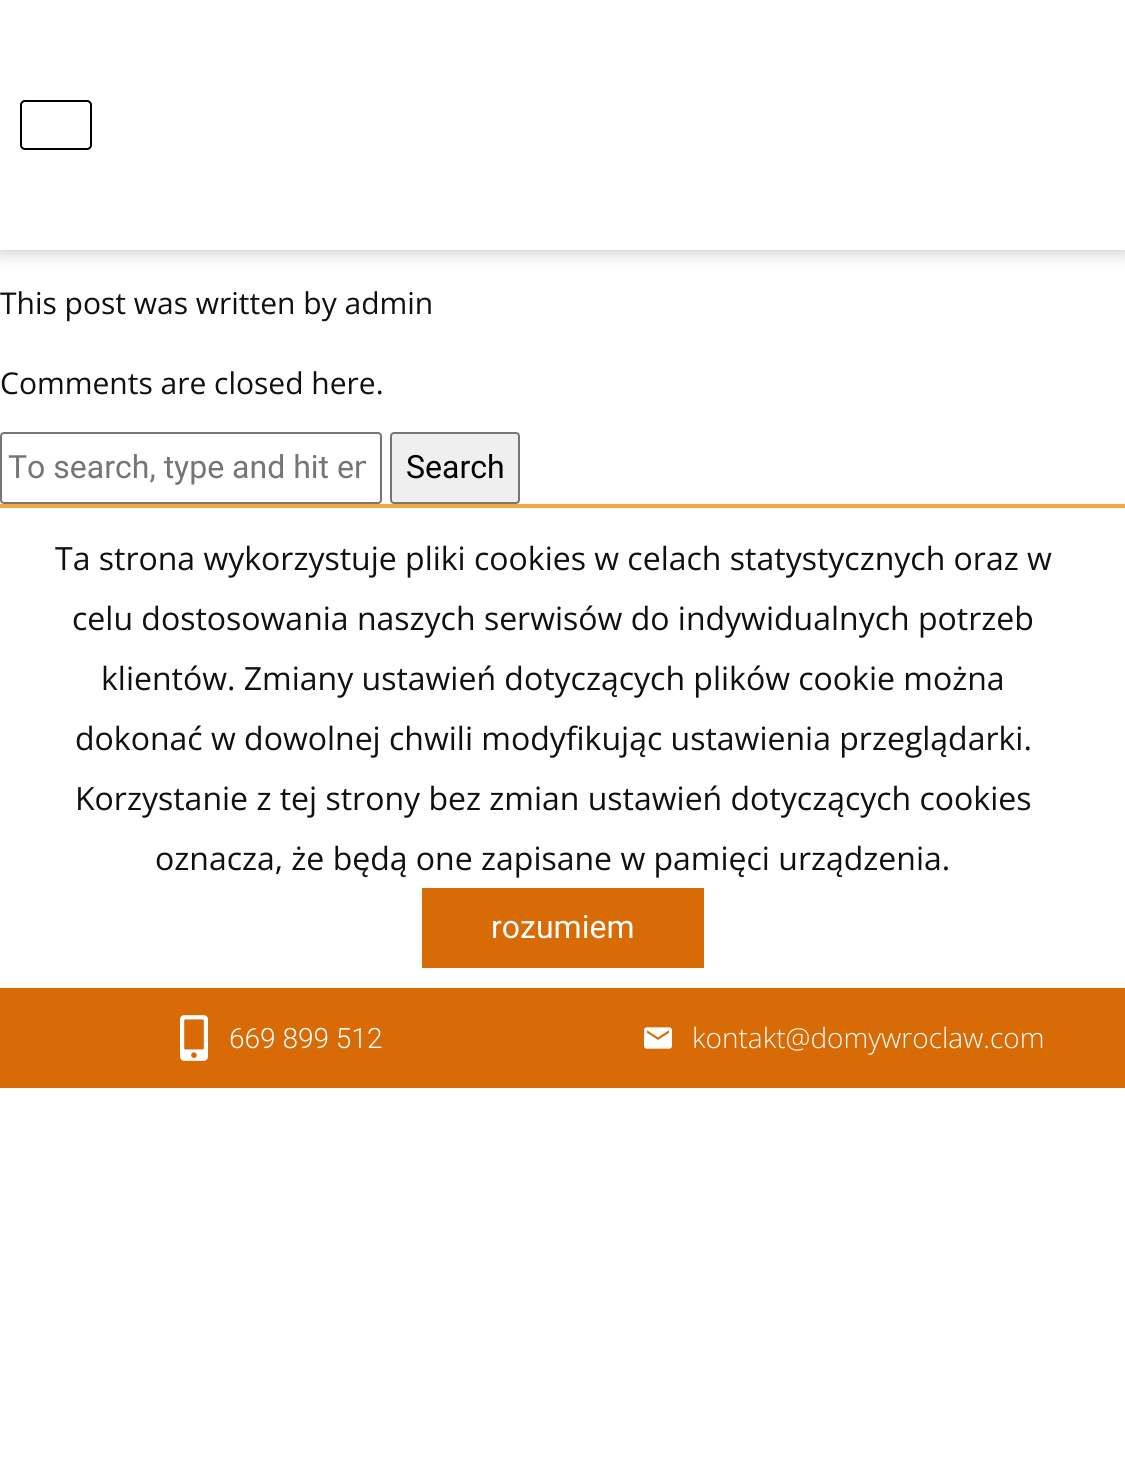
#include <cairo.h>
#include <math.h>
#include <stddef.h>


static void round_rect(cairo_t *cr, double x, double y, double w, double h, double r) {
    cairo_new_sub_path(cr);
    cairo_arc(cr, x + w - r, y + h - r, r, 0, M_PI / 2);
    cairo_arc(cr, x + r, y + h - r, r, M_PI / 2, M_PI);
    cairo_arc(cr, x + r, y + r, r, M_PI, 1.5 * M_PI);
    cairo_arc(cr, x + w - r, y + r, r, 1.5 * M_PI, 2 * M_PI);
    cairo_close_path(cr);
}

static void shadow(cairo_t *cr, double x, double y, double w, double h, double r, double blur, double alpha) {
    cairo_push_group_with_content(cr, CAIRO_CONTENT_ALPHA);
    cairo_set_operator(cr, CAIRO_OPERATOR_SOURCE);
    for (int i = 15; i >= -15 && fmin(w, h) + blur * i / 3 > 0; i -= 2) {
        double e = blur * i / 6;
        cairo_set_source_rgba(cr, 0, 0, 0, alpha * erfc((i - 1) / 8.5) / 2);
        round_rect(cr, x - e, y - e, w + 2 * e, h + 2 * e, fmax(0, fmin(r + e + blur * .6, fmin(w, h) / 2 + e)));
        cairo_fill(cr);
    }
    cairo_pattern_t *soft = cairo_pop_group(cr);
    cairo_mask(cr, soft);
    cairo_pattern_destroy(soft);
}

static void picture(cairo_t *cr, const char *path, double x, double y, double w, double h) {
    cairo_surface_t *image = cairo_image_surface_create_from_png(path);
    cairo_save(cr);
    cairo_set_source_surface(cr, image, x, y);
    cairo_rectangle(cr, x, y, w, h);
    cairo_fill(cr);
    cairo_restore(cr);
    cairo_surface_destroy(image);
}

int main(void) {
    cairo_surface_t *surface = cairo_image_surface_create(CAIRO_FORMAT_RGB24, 1125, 1463);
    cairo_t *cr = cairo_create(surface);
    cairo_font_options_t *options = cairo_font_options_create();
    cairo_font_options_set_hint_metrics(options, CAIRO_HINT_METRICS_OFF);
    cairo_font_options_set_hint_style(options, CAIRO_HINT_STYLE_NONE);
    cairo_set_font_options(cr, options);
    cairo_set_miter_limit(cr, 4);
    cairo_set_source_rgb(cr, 1, 1, 1);
    cairo_paint(cr);
    cairo_set_source_rgb(cr, 0, 0, 0);
    shadow(cr, 0, 0, 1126, 250, 0, 10, 0.25);
    cairo_set_source_rgb(cr, 1, 1, 1);
    cairo_rectangle(cr, 0, 0, 1125, 250);
    cairo_fill(cr);
    round_rect(cr, 21, 101, 70, 48, 4);
    cairo_set_source_rgb(cr, 0, 0, 0);
    cairo_stroke(cr);
    cairo_select_font_face(cr, "Open Sans", CAIRO_FONT_SLANT_NORMAL, CAIRO_FONT_WEIGHT_NORMAL);
    cairo_set_font_size(cr, 30);
    cairo_set_source_rgb(cr, 0.063, 0.063, 0.063);
    cairo_move_to(cr, 0, 314);
    cairo_show_text(cr, "This post was written by admin");
    cairo_move_to(cr, 0, 394);
    cairo_show_text(cr, "Comments are closed here.");
    round_rect(cr, 1, 433, 380, 70, 3);
    cairo_set_source_rgb(cr, 0.463, 0.463, 0.463);
    cairo_stroke(cr);
    cairo_save(cr);
    cairo_rectangle(cr, 8, 448, 358, 38);
    cairo_clip(cr);
    cairo_select_font_face(cr, "Roboto", CAIRO_FONT_SLANT_NORMAL, CAIRO_FONT_WEIGHT_NORMAL);
    cairo_set_font_size(cr, 32);
    cairo_set_source_rgb(cr, 0.459, 0.459, 0.459);
    cairo_move_to(cr, 8, 478);
    cairo_show_text(cr, "To search, type and hit en");
    cairo_restore(cr);
    cairo_set_source_rgb(cr, 0.937, 0.937, 0.937);
    round_rect(cr, 391, 433, 128, 70, 3);
    cairo_fill_preserve(cr);
    cairo_set_source_rgb(cr, 0.463, 0.463, 0.463);
    cairo_stroke(cr);
    cairo_select_font_face(cr, "Roboto", CAIRO_FONT_SLANT_NORMAL, CAIRO_FONT_WEIGHT_NORMAL);
    cairo_set_font_size(cr, 32);
    cairo_set_source_rgb(cr, 0, 0, 0);
    cairo_move_to(cr, 406, 478);
    cairo_show_text(cr, "Search");
    cairo_set_source_rgb(cr, 0.949, 0.655, 0.231);
    cairo_rectangle(cr, 0, 504, 1125, 4);
    cairo_fill(cr);
    cairo_select_font_face(cr, "Open Sans", CAIRO_FONT_SLANT_NORMAL, CAIRO_FONT_WEIGHT_NORMAL);
    cairo_set_source_rgb(cr, 0.063, 0.063, 0.063);
    cairo_move_to(cr, 55, 570);
    cairo_show_text(cr, "Ta strona wykorzystuje pliki cookies w celach statystycznych oraz w");
    cairo_move_to(cr, 72, 630);
    cairo_show_text(cr, "celu dostosowania naszych serwisów do indywidualnych potrzeb");
    cairo_move_to(cr, 101, 690);
    cairo_show_text(cr, "klientów. Zmiany ustawień dotyczących plików cookie można");
    cairo_move_to(cr, 75, 750);
    cairo_show_text(cr, "dokonać w dowolnej chwili modyfikując ustawienia przeglądarki.");
    cairo_move_to(cr, 75, 810);
    cairo_show_text(cr, "Korzystanie z tej strony bez zmian ustawień dotyczących cookies");
    cairo_move_to(cr, 155, 870);
    cairo_show_text(cr, "oznacza, że będą one zapisane w pamięci urządzenia.");
    cairo_set_source_rgb(cr, 0.847, 0.42, 0.027);
    cairo_rectangle(cr, 422, 888, 282, 80);
    cairo_fill(cr);
    cairo_select_font_face(cr, "Roboto", CAIRO_FONT_SLANT_NORMAL, CAIRO_FONT_WEIGHT_NORMAL);
    cairo_set_source_rgb(cr, 1, 1, 1);
    cairo_move_to(cr, 491, 938);
    cairo_show_text(cr, "rozumiem");
    cairo_set_source_rgb(cr, 0.847, 0.42, 0.027);
    cairo_rectangle(cr, 0, 988, 1125, 100);
    cairo_fill(cr);
    picture(cr, "img1.png", 180, 1015, 28, 46);
    cairo_select_font_face(cr, "Roboto Light", CAIRO_FONT_SLANT_NORMAL, CAIRO_FONT_WEIGHT_NORMAL);
    cairo_set_font_size(cr, 28);
    cairo_set_source_rgb(cr, 1, 1, 1);
    cairo_move_to(cr, 229, 1048);
    cairo_show_text(cr, "669 899 512");
    picture(cr, "img2.png", 644, 1027, 28, 22);
    cairo_select_font_face(cr, "Open Sans Light", CAIRO_FONT_SLANT_NORMAL, CAIRO_FONT_WEIGHT_NORMAL);
    cairo_move_to(cr, 692, 1048);
    cairo_show_text(cr, "kontakt@domywroclaw.com");
    cairo_surface_write_to_png(surface, "page.png");
    cairo_font_options_destroy(options);
    cairo_destroy(cr);
    cairo_surface_destroy(surface);
    return 0;
}
